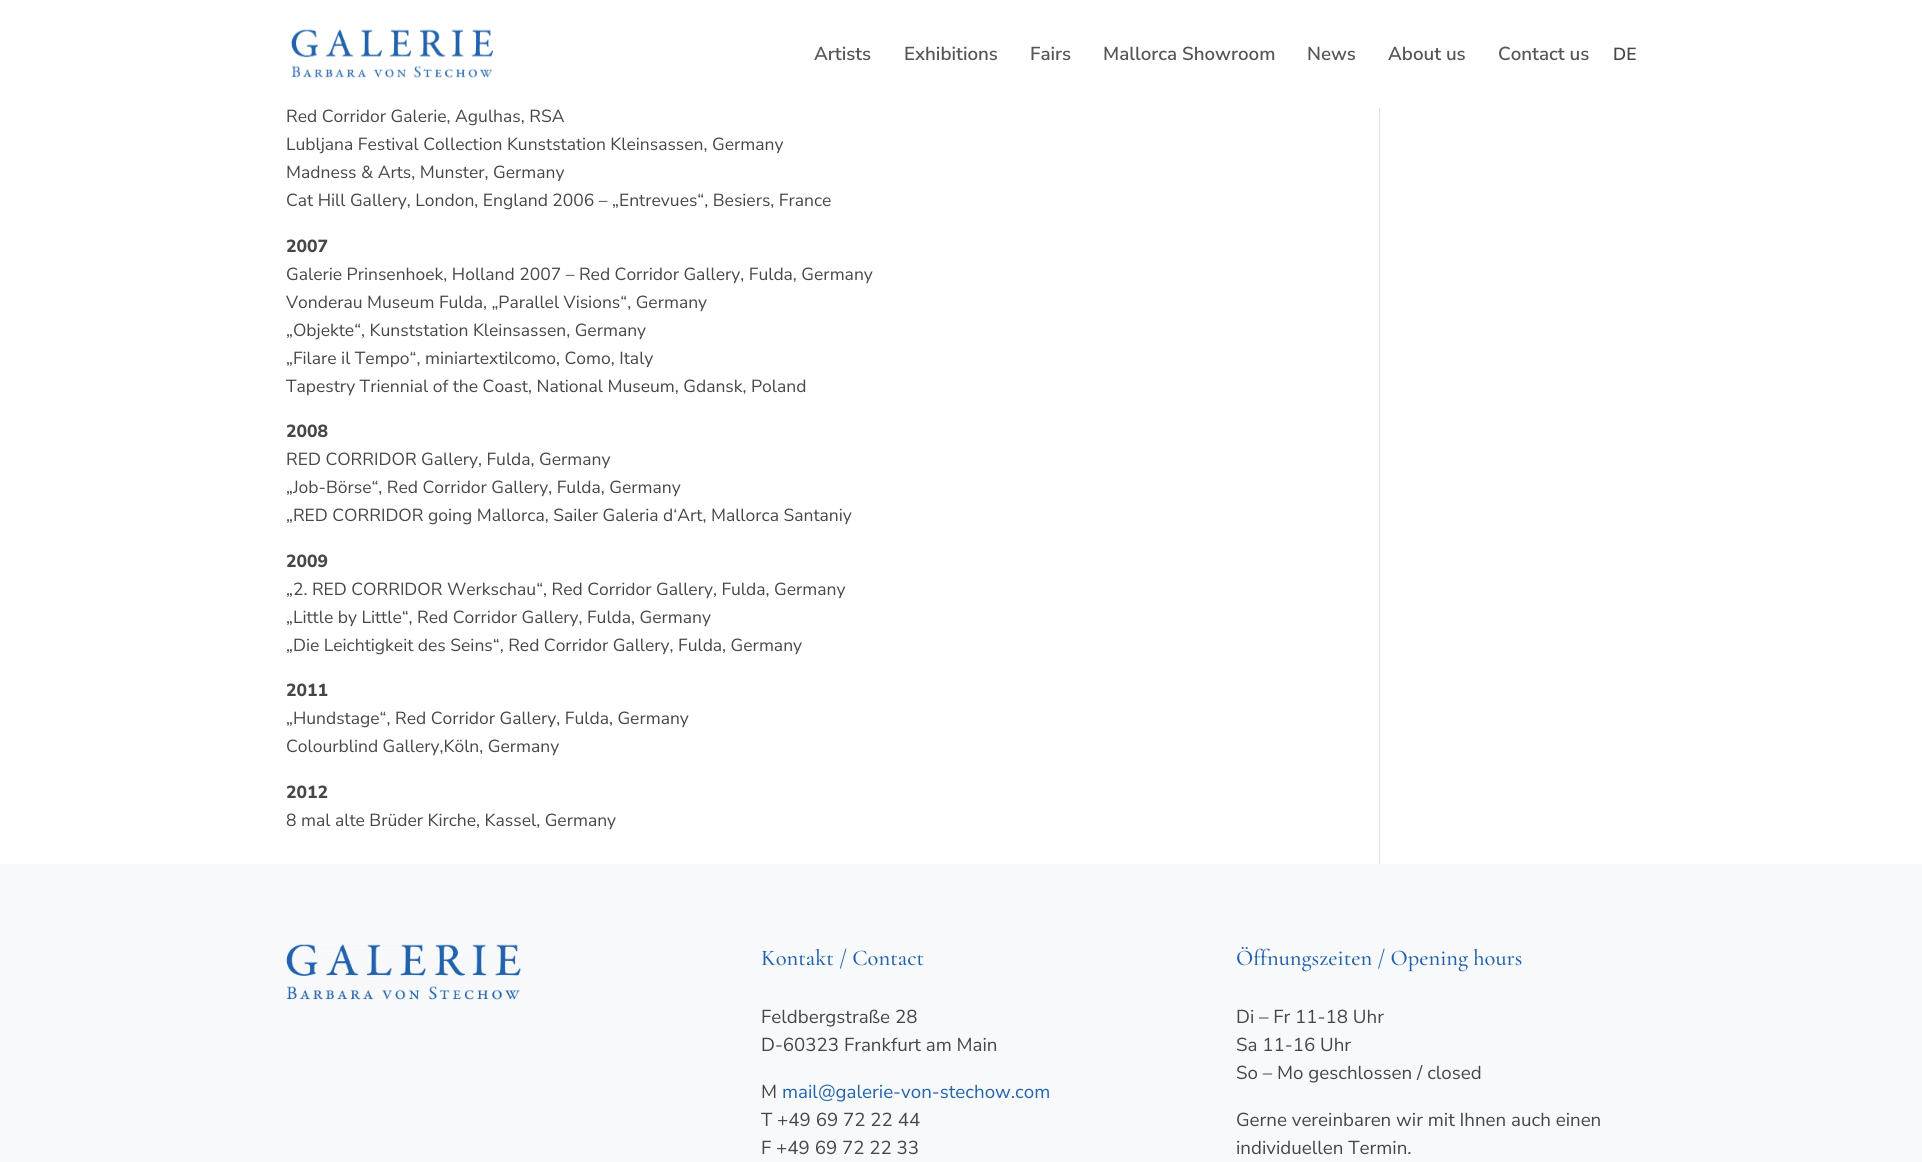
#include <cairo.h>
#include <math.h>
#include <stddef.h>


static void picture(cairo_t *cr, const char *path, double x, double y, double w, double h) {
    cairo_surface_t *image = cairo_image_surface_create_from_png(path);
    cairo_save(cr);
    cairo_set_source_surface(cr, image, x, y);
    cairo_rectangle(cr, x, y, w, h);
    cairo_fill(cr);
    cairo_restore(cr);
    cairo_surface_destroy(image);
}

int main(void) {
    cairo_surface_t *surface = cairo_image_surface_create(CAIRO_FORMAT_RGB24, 1922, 1162);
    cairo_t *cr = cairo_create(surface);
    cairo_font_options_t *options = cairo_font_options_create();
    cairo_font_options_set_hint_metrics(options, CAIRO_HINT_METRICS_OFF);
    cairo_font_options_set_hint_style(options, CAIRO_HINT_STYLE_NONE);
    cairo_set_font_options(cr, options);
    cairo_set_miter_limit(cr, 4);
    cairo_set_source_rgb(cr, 1, 1, 1);
    cairo_paint(cr);
    picture(cr, "img1.png", 291, 29, 202, 49);
    cairo_select_font_face(cr, "Nunito Sans SemiBold", CAIRO_FONT_SLANT_NORMAL, CAIRO_FONT_WEIGHT_NORMAL);
    cairo_set_font_size(cr, 18.75);
    cairo_set_source_rgb(cr, 0.337, 0.337, 0.337);
    cairo_move_to(cr, 814, 60);
    cairo_show_text(cr, "Artists");
    cairo_move_to(cr, 904, 60);
    cairo_show_text(cr, "Exhibitions");
    cairo_move_to(cr, 1030, 60);
    cairo_show_text(cr, "Fairs");
    cairo_move_to(cr, 1103, 60);
    cairo_show_text(cr, "Mallorca Showroom");
    cairo_move_to(cr, 1307, 60);
    cairo_show_text(cr, "News");
    cairo_move_to(cr, 1388, 60);
    cairo_show_text(cr, "About us");
    cairo_move_to(cr, 1498, 60);
    cairo_show_text(cr, "Contact us");
    cairo_set_font_size(cr, 17.5);
    cairo_set_source_rgb(cr, 0.278, 0.278, 0.278);
    cairo_move_to(cr, 1613, 60);
    cairo_show_text(cr, "DE");
    cairo_select_font_face(cr, "Nunito Sans", CAIRO_FONT_SLANT_NORMAL, CAIRO_FONT_WEIGHT_NORMAL);
    cairo_move_to(cr, 286, 122);
    cairo_show_text(cr, "Red Corridor Galerie, Agulhas, RSA");
    cairo_move_to(cr, 286, 150);
    cairo_show_text(cr, "Lubljana Festival Collection Kunststation Kleinsassen, Germany");
    cairo_move_to(cr, 286, 178);
    cairo_show_text(cr, "Madness & Arts, Munster, Germany");
    cairo_move_to(cr, 286, 206);
    cairo_show_text(cr, "Cat Hill Gallery, London, England 2006 – „Entrevues“, Besiers, France");
    cairo_select_font_face(cr, "Nunito Sans ExtraBold", CAIRO_FONT_SLANT_NORMAL, CAIRO_FONT_WEIGHT_NORMAL);
    cairo_move_to(cr, 286, 252);
    cairo_show_text(cr, "2007");
    cairo_select_font_face(cr, "Nunito Sans", CAIRO_FONT_SLANT_NORMAL, CAIRO_FONT_WEIGHT_NORMAL);
    cairo_move_to(cr, 286, 280);
    cairo_show_text(cr, "Galerie Prinsenhoek, Holland 2007 – Red Corridor Gallery, Fulda, Germany");
    cairo_move_to(cr, 286, 308);
    cairo_show_text(cr, "Vonderau Museum Fulda, „Parallel Visions“, Germany");
    cairo_move_to(cr, 286, 336);
    cairo_show_text(cr, "„Objekte“, Kunststation Kleinsassen, Germany");
    cairo_move_to(cr, 286, 364);
    cairo_show_text(cr, "„Filare il Tempo“, miniartextilcomo, Como, Italy");
    cairo_move_to(cr, 286, 392);
    cairo_show_text(cr, "Tapestry Triennial of the Coast, National Museum, Gdansk, Poland");
    cairo_select_font_face(cr, "Nunito Sans ExtraBold", CAIRO_FONT_SLANT_NORMAL, CAIRO_FONT_WEIGHT_NORMAL);
    cairo_move_to(cr, 286, 437);
    cairo_show_text(cr, "2008");
    cairo_select_font_face(cr, "Nunito Sans", CAIRO_FONT_SLANT_NORMAL, CAIRO_FONT_WEIGHT_NORMAL);
    cairo_move_to(cr, 286, 465);
    cairo_show_text(cr, "RED CORRIDOR Gallery, Fulda, Germany");
    cairo_move_to(cr, 286, 493);
    cairo_show_text(cr, "„Job-Börse“, Red Corridor Gallery, Fulda, Germany");
    cairo_move_to(cr, 286, 521);
    cairo_show_text(cr, "„RED CORRIDOR going Mallorca, Sailer Galeria d‘Art, Mallorca Santaniy");
    cairo_select_font_face(cr, "Nunito Sans ExtraBold", CAIRO_FONT_SLANT_NORMAL, CAIRO_FONT_WEIGHT_NORMAL);
    cairo_move_to(cr, 286, 567);
    cairo_show_text(cr, "2009");
    cairo_select_font_face(cr, "Nunito Sans", CAIRO_FONT_SLANT_NORMAL, CAIRO_FONT_WEIGHT_NORMAL);
    cairo_move_to(cr, 286, 595);
    cairo_show_text(cr, "„2. RED CORRIDOR Werkschau“, Red Corridor Gallery, Fulda, Germany");
    cairo_move_to(cr, 286, 623);
    cairo_show_text(cr, "„Little by Little“, Red Corridor Gallery, Fulda, Germany");
    cairo_move_to(cr, 286, 651);
    cairo_show_text(cr, "„Die Leichtigkeit des Seins“, Red Corridor Gallery, Fulda, Germany");
    cairo_select_font_face(cr, "Nunito Sans ExtraBold", CAIRO_FONT_SLANT_NORMAL, CAIRO_FONT_WEIGHT_NORMAL);
    cairo_move_to(cr, 286, 696);
    cairo_show_text(cr, "2011");
    cairo_select_font_face(cr, "Nunito Sans", CAIRO_FONT_SLANT_NORMAL, CAIRO_FONT_WEIGHT_NORMAL);
    cairo_move_to(cr, 286, 724);
    cairo_show_text(cr, "„Hundstage“, Red Corridor Gallery, Fulda, Germany");
    cairo_move_to(cr, 286, 752);
    cairo_show_text(cr, "Colourblind Gallery,Köln, Germany");
    cairo_select_font_face(cr, "Nunito Sans ExtraBold", CAIRO_FONT_SLANT_NORMAL, CAIRO_FONT_WEIGHT_NORMAL);
    cairo_move_to(cr, 286, 798);
    cairo_show_text(cr, "2012");
    cairo_select_font_face(cr, "Nunito Sans", CAIRO_FONT_SLANT_NORMAL, CAIRO_FONT_WEIGHT_NORMAL);
    cairo_move_to(cr, 286, 826);
    cairo_show_text(cr, "8 mal alte Brüder Kirche, Kassel, Germany");
    cairo_set_source_rgb(cr, 0.886, 0.886, 0.886);
    cairo_rectangle(cr, 1379, 108, 1, 756);
    cairo_fill(cr);
    cairo_set_source_rgb(cr, 0.969, 0.976, 0.98);
    cairo_rectangle(cr, 0, 864, 1922, 298);
    cairo_fill(cr);
    picture(cr, "img2.png", 286, 944, 235, 56);
    cairo_select_font_face(cr, "Cormorant Garamond Medium", CAIRO_FONT_SLANT_NORMAL, CAIRO_FONT_WEIGHT_NORMAL);
    cairo_set_font_size(cr, 22.5);
    cairo_set_source_rgb(cr, 0.133, 0.388, 0.678);
    cairo_move_to(cr, 761, 965);
    cairo_show_text(cr, "Kontakt / Contact");
    cairo_select_font_face(cr, "Nunito Sans", CAIRO_FONT_SLANT_NORMAL, CAIRO_FONT_WEIGHT_NORMAL);
    cairo_set_font_size(cr, 18.75);
    cairo_set_source_rgb(cr, 0.278, 0.278, 0.278);
    cairo_move_to(cr, 761, 1023);
    cairo_show_text(cr, "Feldbergstraße 28");
    cairo_move_to(cr, 761, 1051);
    cairo_show_text(cr, "D-60323 Frankfurt am Main");
    cairo_move_to(cr, 761, 1098);
    cairo_show_text(cr, "M");
    cairo_set_source_rgb(cr, 0.133, 0.388, 0.678);
    cairo_move_to(cr, 782, 1098);
    cairo_show_text(cr, "mail@galerie-von-stechow.com");
    cairo_set_source_rgb(cr, 0.278, 0.278, 0.278);
    cairo_move_to(cr, 761, 1126);
    cairo_show_text(cr, "T +49 69 72 22 44");
    cairo_move_to(cr, 761, 1154);
    cairo_show_text(cr, "F +49 69 72 22 33");
    cairo_select_font_face(cr, "Cormorant Garamond Medium", CAIRO_FONT_SLANT_NORMAL, CAIRO_FONT_WEIGHT_NORMAL);
    cairo_set_font_size(cr, 22.5);
    cairo_set_source_rgb(cr, 0.133, 0.388, 0.678);
    cairo_move_to(cr, 1236, 965);
    cairo_show_text(cr, "Öffnungszeiten / Opening hours");
    cairo_select_font_face(cr, "Nunito Sans", CAIRO_FONT_SLANT_NORMAL, CAIRO_FONT_WEIGHT_NORMAL);
    cairo_set_font_size(cr, 18.75);
    cairo_set_source_rgb(cr, 0.278, 0.278, 0.278);
    cairo_move_to(cr, 1236, 1023);
    cairo_show_text(cr, "Di – Fr 11-18 Uhr");
    cairo_move_to(cr, 1236, 1051);
    cairo_show_text(cr, "Sa 11-16 Uhr");
    cairo_move_to(cr, 1236, 1079);
    cairo_show_text(cr, "So – Mo geschlossen / closed");
    cairo_move_to(cr, 1236, 1126);
    cairo_show_text(cr, "Gerne vereinbaren wir mit Ihnen auch einen");
    cairo_move_to(cr, 1236, 1154);
    cairo_show_text(cr, "individuellen Termin.");
    cairo_surface_write_to_png(surface, "page.png");
    cairo_font_options_destroy(options);
    cairo_destroy(cr);
    cairo_surface_destroy(surface);
    return 0;
}
